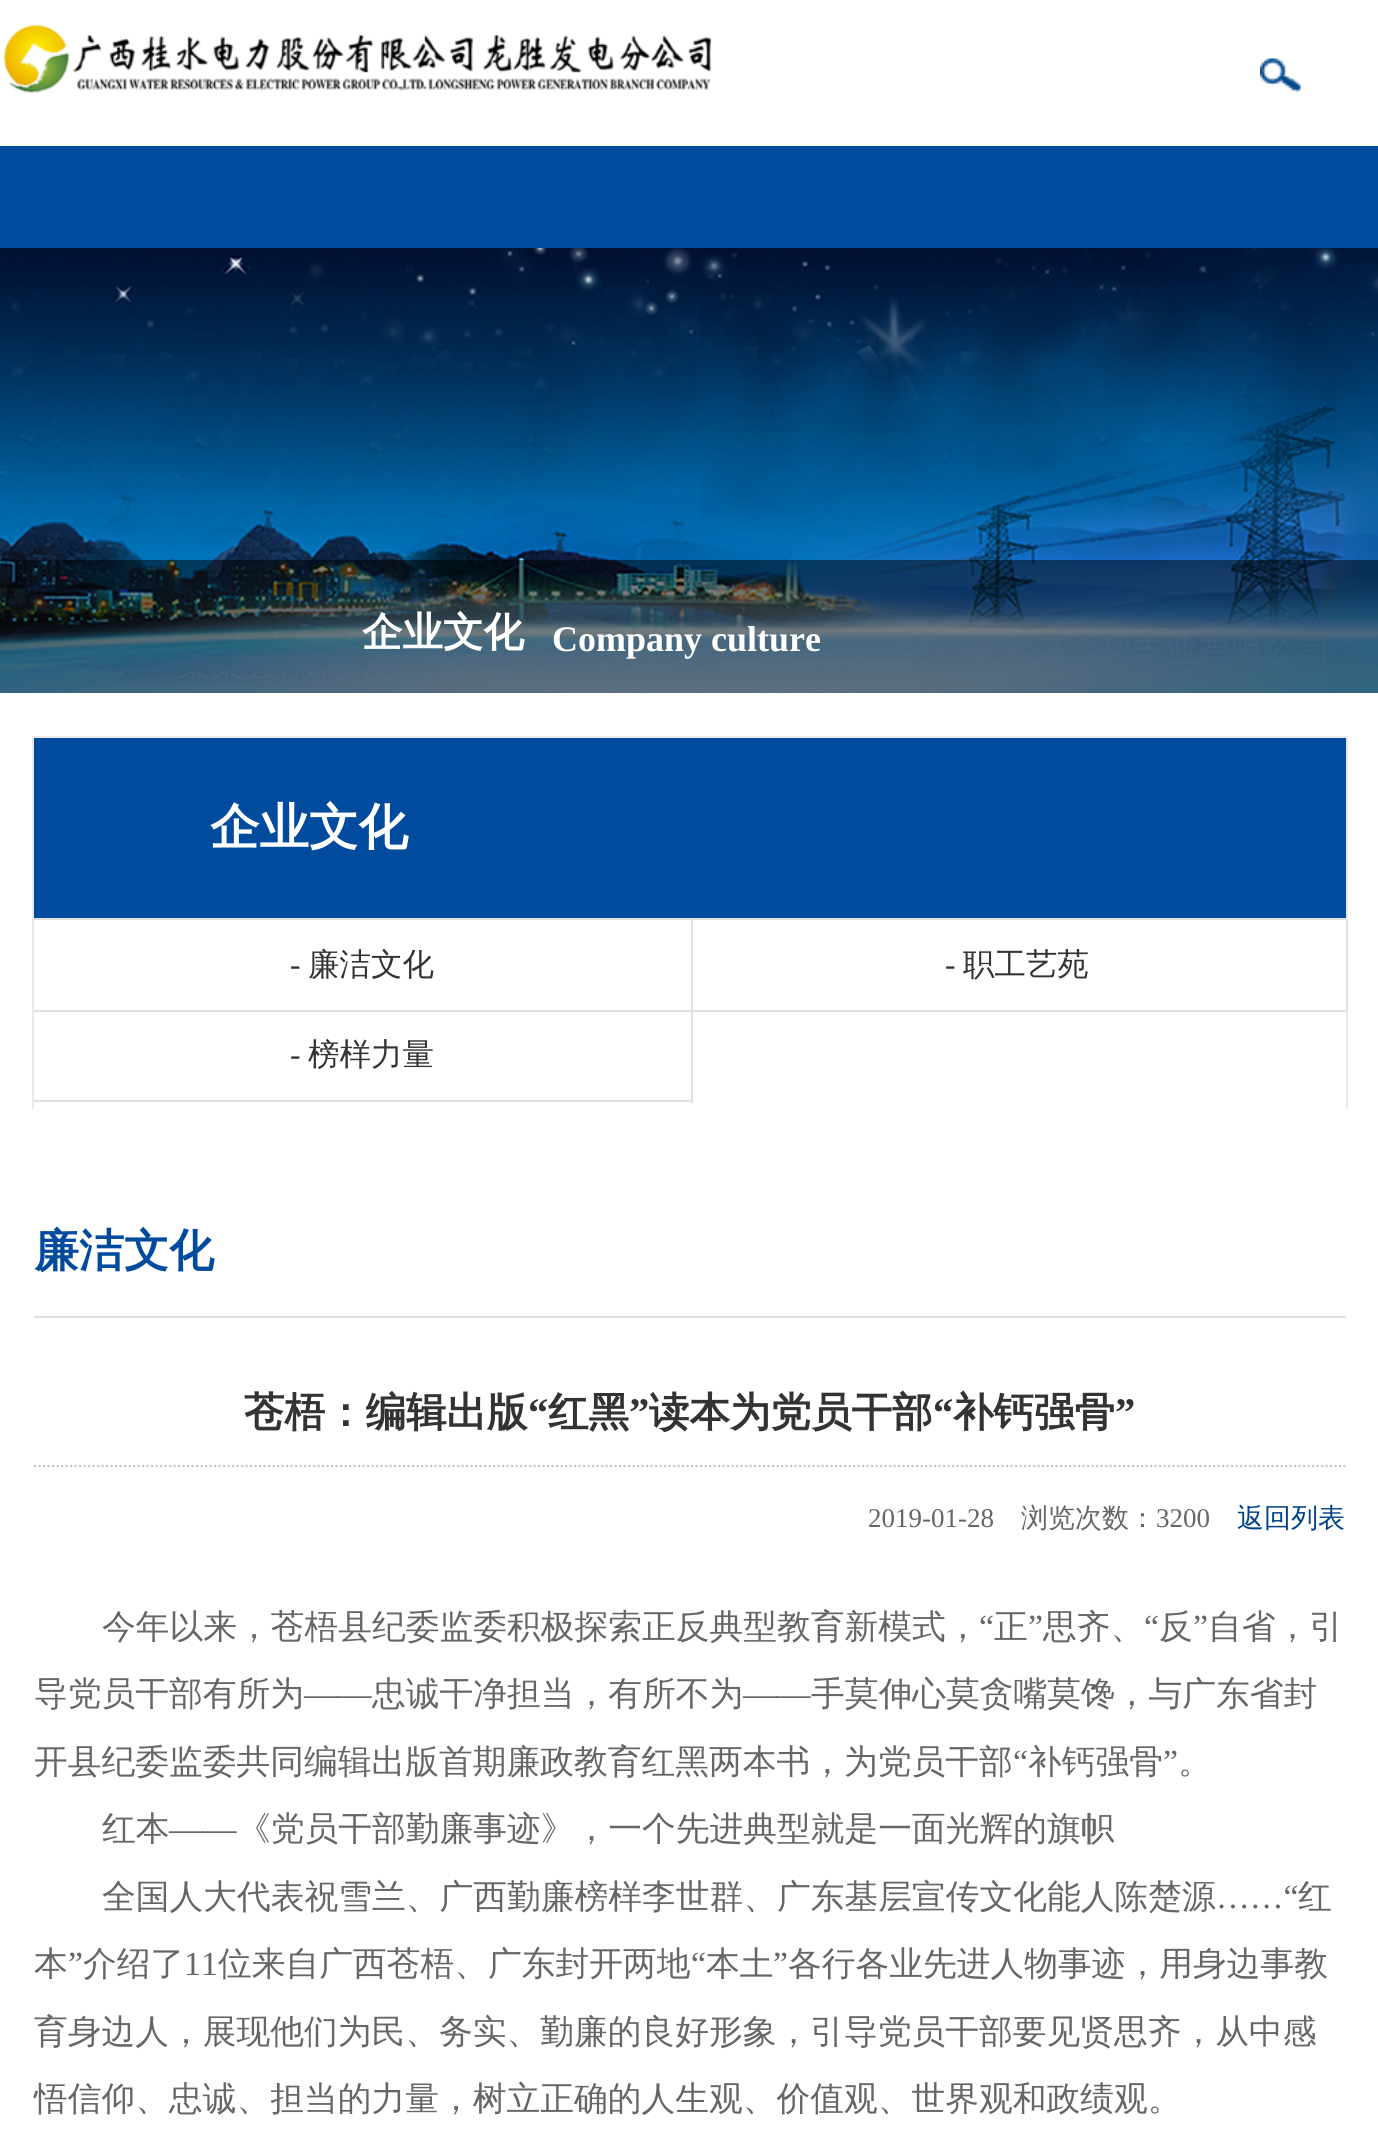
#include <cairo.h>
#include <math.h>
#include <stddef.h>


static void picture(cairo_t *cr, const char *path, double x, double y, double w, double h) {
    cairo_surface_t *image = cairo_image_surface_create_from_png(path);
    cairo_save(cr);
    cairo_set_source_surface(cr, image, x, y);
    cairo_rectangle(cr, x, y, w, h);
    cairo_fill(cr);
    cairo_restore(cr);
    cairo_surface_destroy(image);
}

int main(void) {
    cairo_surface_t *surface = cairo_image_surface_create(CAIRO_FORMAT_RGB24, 1378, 2140);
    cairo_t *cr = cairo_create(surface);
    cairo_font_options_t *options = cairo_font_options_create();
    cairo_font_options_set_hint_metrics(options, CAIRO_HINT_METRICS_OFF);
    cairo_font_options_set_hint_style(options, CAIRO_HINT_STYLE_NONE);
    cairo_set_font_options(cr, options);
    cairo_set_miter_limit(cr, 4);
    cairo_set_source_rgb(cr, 1, 1, 1);
    cairo_paint(cr);
    picture(cr, "img1.png", 3, 24, 709, 69);
    picture(cr, "img2.png", 1260, 58, 41, 35);
    cairo_set_source_rgb(cr, 0, 0.294, 0.616);
    cairo_rectangle(cr, 0, 146, 1378, 102);
    cairo_fill(cr);
    picture(cr, "img3.png", 0, 248, 1378, 445);
    cairo_set_source_rgba(cr, 0, 0, 0, 0.5);
    cairo_rectangle(cr, 0, 560, 1378, 133);
    cairo_fill(cr);
    cairo_select_font_face(cr, "WenQuanYi Zen Hei", CAIRO_FONT_SLANT_NORMAL, CAIRO_FONT_WEIGHT_BOLD);
    cairo_set_font_size(cr, 40.5);
    cairo_set_source_rgb(cr, 1, 1, 1);
    cairo_move_to(cr, 362, 646);
    cairo_show_text(cr, "企业文化");
    cairo_select_font_face(cr, "Liberation Serif", CAIRO_FONT_SLANT_NORMAL, CAIRO_FONT_WEIGHT_BOLD);
    cairo_set_font_size(cr, 36);
    cairo_move_to(cr, 552, 651);
    cairo_show_text(cr, "Company culture");
    cairo_set_source_rgb(cr, 0.914, 0.914, 0.914);
    cairo_rectangle(cr, 32, 736, 1316, 2);
    cairo_fill(cr);
    cairo_rectangle(cr, 1346, 736, 2, 373);
    cairo_fill(cr);
    cairo_rectangle(cr, 32, 736, 2, 373);
    cairo_fill(cr);
    cairo_set_source_rgb(cr, 0, 0.294, 0.616);
    cairo_rectangle(cr, 34, 738, 1312, 180);
    cairo_fill(cr);
    cairo_set_source_rgb(cr, 0.878, 0.878, 0.878);
    cairo_rectangle(cr, 34, 918, 1312, 2);
    cairo_fill(cr);
    cairo_select_font_face(cr, "WenQuanYi Zen Hei", CAIRO_FONT_SLANT_NORMAL, CAIRO_FONT_WEIGHT_BOLD);
    cairo_set_font_size(cr, 49.5);
    cairo_set_source_rgb(cr, 1, 1, 1);
    cairo_move_to(cr, 210, 844);
    cairo_show_text(cr, "企业文化");
    cairo_set_source_rgb(cr, 0.878, 0.878, 0.878);
    cairo_rectangle(cr, 691, 920, 2, 93);
    cairo_fill(cr);
    cairo_rectangle(cr, 34, 1010, 659, 2);
    cairo_fill(cr);
    cairo_select_font_face(cr, "Liberation Serif", CAIRO_FONT_SLANT_NORMAL, CAIRO_FONT_WEIGHT_NORMAL);
    cairo_set_font_size(cr, 31.5);
    cairo_set_source_rgb(cr, 0.2, 0.2, 0.2);
    cairo_move_to(cr, 290, 975);
    cairo_show_text(cr, "-");
    cairo_select_font_face(cr, "WenQuanYi Zen Hei Medium", CAIRO_FONT_SLANT_NORMAL, CAIRO_FONT_WEIGHT_NORMAL);
    cairo_move_to(cr, 308, 975);
    cairo_show_text(cr, "廉洁文化");
    cairo_set_source_rgb(cr, 0.878, 0.878, 0.878);
    cairo_rectangle(cr, 1346, 920, 2, 93);
    cairo_fill(cr);
    cairo_rectangle(cr, 691, 1010, 657, 2);
    cairo_fill(cr);
    cairo_select_font_face(cr, "Liberation Serif", CAIRO_FONT_SLANT_NORMAL, CAIRO_FONT_WEIGHT_NORMAL);
    cairo_set_source_rgb(cr, 0.2, 0.2, 0.2);
    cairo_move_to(cr, 945, 975);
    cairo_show_text(cr, "-");
    cairo_select_font_face(cr, "WenQuanYi Zen Hei Medium", CAIRO_FONT_SLANT_NORMAL, CAIRO_FONT_WEIGHT_NORMAL);
    cairo_move_to(cr, 963, 975);
    cairo_show_text(cr, "职工艺苑");
    cairo_set_source_rgb(cr, 0.878, 0.878, 0.878);
    cairo_rectangle(cr, 691, 1010, 2, 93);
    cairo_fill(cr);
    cairo_rectangle(cr, 34, 1100, 659, 2);
    cairo_fill(cr);
    cairo_select_font_face(cr, "Liberation Serif", CAIRO_FONT_SLANT_NORMAL, CAIRO_FONT_WEIGHT_NORMAL);
    cairo_set_source_rgb(cr, 0.2, 0.2, 0.2);
    cairo_move_to(cr, 290, 1065);
    cairo_show_text(cr, "-");
    cairo_select_font_face(cr, "WenQuanYi Zen Hei Medium", CAIRO_FONT_SLANT_NORMAL, CAIRO_FONT_WEIGHT_NORMAL);
    cairo_move_to(cr, 308, 1065);
    cairo_show_text(cr, "榜样力量");
    cairo_set_source_rgb(cr, 0.878, 0.878, 0.878);
    cairo_rectangle(cr, 34, 1316, 1312, 2);
    cairo_fill(cr);
    cairo_select_font_face(cr, "WenQuanYi Zen Hei", CAIRO_FONT_SLANT_NORMAL, CAIRO_FONT_WEIGHT_BOLD);
    cairo_set_font_size(cr, 45);
    cairo_set_source_rgb(cr, 0, 0.294, 0.616);
    cairo_move_to(cr, 34, 1266);
    cairo_show_text(cr, "廉洁文化");
    cairo_new_path(cr);
    cairo_move_to(cr, 34, 1466);
    cairo_line_to(cr, 1345.5, 1466);
    cairo_set_source_rgb(cr, 0.78, 0.78, 0.78);
    cairo_set_line_width(cr, 2.2);
    cairo_set_dash(cr, (double[]){2.25, 2.25}, 2, 0);
    cairo_stroke(cr);
    cairo_set_font_size(cr, 40.5);
    cairo_set_source_rgb(cr, 0.2, 0.2, 0.2);
    cairo_move_to(cr, 244, 1426);
    cairo_show_text(cr, "苍梧：编辑出版");
    cairo_select_font_face(cr, "Liberation Serif", CAIRO_FONT_SLANT_NORMAL, CAIRO_FONT_WEIGHT_BOLD);
    cairo_move_to(cr, 528, 1426);
    cairo_show_text(cr, "“");
    cairo_select_font_face(cr, "WenQuanYi Zen Hei", CAIRO_FONT_SLANT_NORMAL, CAIRO_FONT_WEIGHT_BOLD);
    cairo_move_to(cr, 548, 1426);
    cairo_show_text(cr, "红黑");
    cairo_select_font_face(cr, "Liberation Serif", CAIRO_FONT_SLANT_NORMAL, CAIRO_FONT_WEIGHT_BOLD);
    cairo_move_to(cr, 629, 1426);
    cairo_show_text(cr, "”");
    cairo_select_font_face(cr, "WenQuanYi Zen Hei", CAIRO_FONT_SLANT_NORMAL, CAIRO_FONT_WEIGHT_BOLD);
    cairo_move_to(cr, 649, 1426);
    cairo_show_text(cr, "读本为党员干部");
    cairo_select_font_face(cr, "Liberation Serif", CAIRO_FONT_SLANT_NORMAL, CAIRO_FONT_WEIGHT_BOLD);
    cairo_move_to(cr, 933, 1426);
    cairo_show_text(cr, "“");
    cairo_select_font_face(cr, "WenQuanYi Zen Hei", CAIRO_FONT_SLANT_NORMAL, CAIRO_FONT_WEIGHT_BOLD);
    cairo_move_to(cr, 953, 1426);
    cairo_show_text(cr, "补钙强骨");
    cairo_select_font_face(cr, "Liberation Serif", CAIRO_FONT_SLANT_NORMAL, CAIRO_FONT_WEIGHT_BOLD);
    cairo_move_to(cr, 1115, 1426);
    cairo_show_text(cr, "”");
    cairo_select_font_face(cr, "Liberation Serif", CAIRO_FONT_SLANT_NORMAL, CAIRO_FONT_WEIGHT_NORMAL);
    cairo_set_font_size(cr, 27);
    cairo_set_source_rgb(cr, 0.4, 0.4, 0.4);
    cairo_move_to(cr, 868, 1527);
    cairo_show_text(cr, "2019-01-28");
    cairo_select_font_face(cr, "WenQuanYi Zen Hei Medium", CAIRO_FONT_SLANT_NORMAL, CAIRO_FONT_WEIGHT_NORMAL);
    cairo_move_to(cr, 1021, 1527);
    cairo_show_text(cr, "浏览次数：");
    cairo_select_font_face(cr, "Liberation Serif", CAIRO_FONT_SLANT_NORMAL, CAIRO_FONT_WEIGHT_NORMAL);
    cairo_move_to(cr, 1156, 1527);
    cairo_show_text(cr, "3200");
    cairo_select_font_face(cr, "WenQuanYi Zen Hei Medium", CAIRO_FONT_SLANT_NORMAL, CAIRO_FONT_WEIGHT_NORMAL);
    cairo_set_source_rgb(cr, 0, 0.255, 0.537);
    cairo_move_to(cr, 1237, 1527);
    cairo_show_text(cr, "返回列表");
    cairo_set_font_size(cr, 33.75);
    cairo_set_source_rgb(cr, 0.4, 0.4, 0.4);
    cairo_move_to(cr, 102, 1638);
    cairo_show_text(cr, "今年以来，苍梧县纪委监委积极探索正反典型教育新模式，");
    cairo_select_font_face(cr, "Liberation Serif", CAIRO_FONT_SLANT_NORMAL, CAIRO_FONT_WEIGHT_NORMAL);
    cairo_move_to(cr, 979, 1638);
    cairo_show_text(cr, "“");
    cairo_select_font_face(cr, "WenQuanYi Zen Hei Medium", CAIRO_FONT_SLANT_NORMAL, CAIRO_FONT_WEIGHT_NORMAL);
    cairo_move_to(cr, 994, 1638);
    cairo_show_text(cr, "正");
    cairo_select_font_face(cr, "Liberation Serif", CAIRO_FONT_SLANT_NORMAL, CAIRO_FONT_WEIGHT_NORMAL);
    cairo_move_to(cr, 1028, 1638);
    cairo_show_text(cr, "”");
    cairo_select_font_face(cr, "WenQuanYi Zen Hei Medium", CAIRO_FONT_SLANT_NORMAL, CAIRO_FONT_WEIGHT_NORMAL);
    cairo_move_to(cr, 1043, 1638);
    cairo_show_text(cr, "思齐、");
    cairo_select_font_face(cr, "Liberation Serif", CAIRO_FONT_SLANT_NORMAL, CAIRO_FONT_WEIGHT_NORMAL);
    cairo_move_to(cr, 1144, 1638);
    cairo_show_text(cr, "“");
    cairo_select_font_face(cr, "WenQuanYi Zen Hei Medium", CAIRO_FONT_SLANT_NORMAL, CAIRO_FONT_WEIGHT_NORMAL);
    cairo_move_to(cr, 1159, 1638);
    cairo_show_text(cr, "反");
    cairo_select_font_face(cr, "Liberation Serif", CAIRO_FONT_SLANT_NORMAL, CAIRO_FONT_WEIGHT_NORMAL);
    cairo_move_to(cr, 1193, 1638);
    cairo_show_text(cr, "”");
    cairo_select_font_face(cr, "WenQuanYi Zen Hei Medium", CAIRO_FONT_SLANT_NORMAL, CAIRO_FONT_WEIGHT_NORMAL);
    cairo_move_to(cr, 1208, 1638);
    cairo_show_text(cr, "自省，引");
    cairo_move_to(cr, 34, 1705);
    cairo_show_text(cr, "导党员干部有所为");
    cairo_select_font_face(cr, "Liberation Serif", CAIRO_FONT_SLANT_NORMAL, CAIRO_FONT_WEIGHT_NORMAL);
    cairo_move_to(cr, 304, 1705);
    cairo_show_text(cr, "——");
    cairo_select_font_face(cr, "WenQuanYi Zen Hei Medium", CAIRO_FONT_SLANT_NORMAL, CAIRO_FONT_WEIGHT_NORMAL);
    cairo_move_to(cr, 372, 1705);
    cairo_show_text(cr, "忠诚干净担当，有所不为");
    cairo_select_font_face(cr, "Liberation Serif", CAIRO_FONT_SLANT_NORMAL, CAIRO_FONT_WEIGHT_NORMAL);
    cairo_move_to(cr, 743, 1705);
    cairo_show_text(cr, "——");
    cairo_select_font_face(cr, "WenQuanYi Zen Hei Medium", CAIRO_FONT_SLANT_NORMAL, CAIRO_FONT_WEIGHT_NORMAL);
    cairo_move_to(cr, 811, 1705);
    cairo_show_text(cr, "手莫伸心莫贪嘴莫馋，与广东省封");
    cairo_move_to(cr, 34, 1773);
    cairo_show_text(cr, "开县纪委监委共同编辑出版首期廉政教育红黑两本书，为党员干部");
    cairo_select_font_face(cr, "Liberation Serif", CAIRO_FONT_SLANT_NORMAL, CAIRO_FONT_WEIGHT_NORMAL);
    cairo_move_to(cr, 1013, 1773);
    cairo_show_text(cr, "“");
    cairo_select_font_face(cr, "WenQuanYi Zen Hei Medium", CAIRO_FONT_SLANT_NORMAL, CAIRO_FONT_WEIGHT_NORMAL);
    cairo_move_to(cr, 1028, 1773);
    cairo_show_text(cr, "补钙强骨");
    cairo_select_font_face(cr, "Liberation Serif", CAIRO_FONT_SLANT_NORMAL, CAIRO_FONT_WEIGHT_NORMAL);
    cairo_move_to(cr, 1163, 1773);
    cairo_show_text(cr, "”");
    cairo_select_font_face(cr, "WenQuanYi Zen Hei Medium", CAIRO_FONT_SLANT_NORMAL, CAIRO_FONT_WEIGHT_NORMAL);
    cairo_move_to(cr, 1178, 1773);
    cairo_show_text(cr, "。");
    cairo_move_to(cr, 102, 1840);
    cairo_show_text(cr, "红本");
    cairo_select_font_face(cr, "Liberation Serif", CAIRO_FONT_SLANT_NORMAL, CAIRO_FONT_WEIGHT_NORMAL);
    cairo_move_to(cr, 169, 1840);
    cairo_show_text(cr, "——");
    cairo_select_font_face(cr, "WenQuanYi Zen Hei Medium", CAIRO_FONT_SLANT_NORMAL, CAIRO_FONT_WEIGHT_NORMAL);
    cairo_move_to(cr, 237, 1840);
    cairo_show_text(cr, "《党员干部勤廉事迹》，一个先进典型就是一面光辉的旗帜");
    cairo_move_to(cr, 102, 1908);
    cairo_show_text(cr, "全国人大代表祝雪兰、广西勤廉榜样李世群、广东基层宣传文化能人陈楚源");
    cairo_select_font_face(cr, "Liberation Serif", CAIRO_FONT_SLANT_NORMAL, CAIRO_FONT_WEIGHT_NORMAL);
    cairo_move_to(cr, 1216, 1908);
    cairo_show_text(cr, "……“");
    cairo_select_font_face(cr, "WenQuanYi Zen Hei Medium", CAIRO_FONT_SLANT_NORMAL, CAIRO_FONT_WEIGHT_NORMAL);
    cairo_move_to(cr, 1298, 1908);
    cairo_show_text(cr, "红");
    cairo_move_to(cr, 34, 1975);
    cairo_show_text(cr, "本");
    cairo_select_font_face(cr, "Liberation Serif", CAIRO_FONT_SLANT_NORMAL, CAIRO_FONT_WEIGHT_NORMAL);
    cairo_move_to(cr, 68, 1975);
    cairo_show_text(cr, "”");
    cairo_select_font_face(cr, "WenQuanYi Zen Hei Medium", CAIRO_FONT_SLANT_NORMAL, CAIRO_FONT_WEIGHT_NORMAL);
    cairo_move_to(cr, 83, 1975);
    cairo_show_text(cr, "介绍了");
    cairo_select_font_face(cr, "Liberation Serif", CAIRO_FONT_SLANT_NORMAL, CAIRO_FONT_WEIGHT_NORMAL);
    cairo_move_to(cr, 184, 1975);
    cairo_show_text(cr, "11");
    cairo_select_font_face(cr, "WenQuanYi Zen Hei Medium", CAIRO_FONT_SLANT_NORMAL, CAIRO_FONT_WEIGHT_NORMAL);
    cairo_move_to(cr, 218, 1975);
    cairo_show_text(cr, "位来自广西苍梧、广东封开两地");
    cairo_select_font_face(cr, "Liberation Serif", CAIRO_FONT_SLANT_NORMAL, CAIRO_FONT_WEIGHT_NORMAL);
    cairo_move_to(cr, 691, 1975);
    cairo_show_text(cr, "“");
    cairo_select_font_face(cr, "WenQuanYi Zen Hei Medium", CAIRO_FONT_SLANT_NORMAL, CAIRO_FONT_WEIGHT_NORMAL);
    cairo_move_to(cr, 706, 1975);
    cairo_show_text(cr, "本土");
    cairo_select_font_face(cr, "Liberation Serif", CAIRO_FONT_SLANT_NORMAL, CAIRO_FONT_WEIGHT_NORMAL);
    cairo_move_to(cr, 773, 1975);
    cairo_show_text(cr, "”");
    cairo_select_font_face(cr, "WenQuanYi Zen Hei Medium", CAIRO_FONT_SLANT_NORMAL, CAIRO_FONT_WEIGHT_NORMAL);
    cairo_move_to(cr, 788, 1975);
    cairo_show_text(cr, "各行各业先进人物事迹，用身边事教");
    cairo_move_to(cr, 34, 2043);
    cairo_show_text(cr, "育身边人，展现他们为民、务实、勤廉的良好形象，引导党员干部要见贤思齐，从中感");
    cairo_move_to(cr, 34, 2110);
    cairo_show_text(cr, "悟信仰、忠诚、担当的力量，树立正确的人生观、价值观、世界观和政绩观。");
    cairo_surface_write_to_png(surface, "page.png");
    cairo_font_options_destroy(options);
    cairo_destroy(cr);
    cairo_surface_destroy(surface);
    return 0;
}
